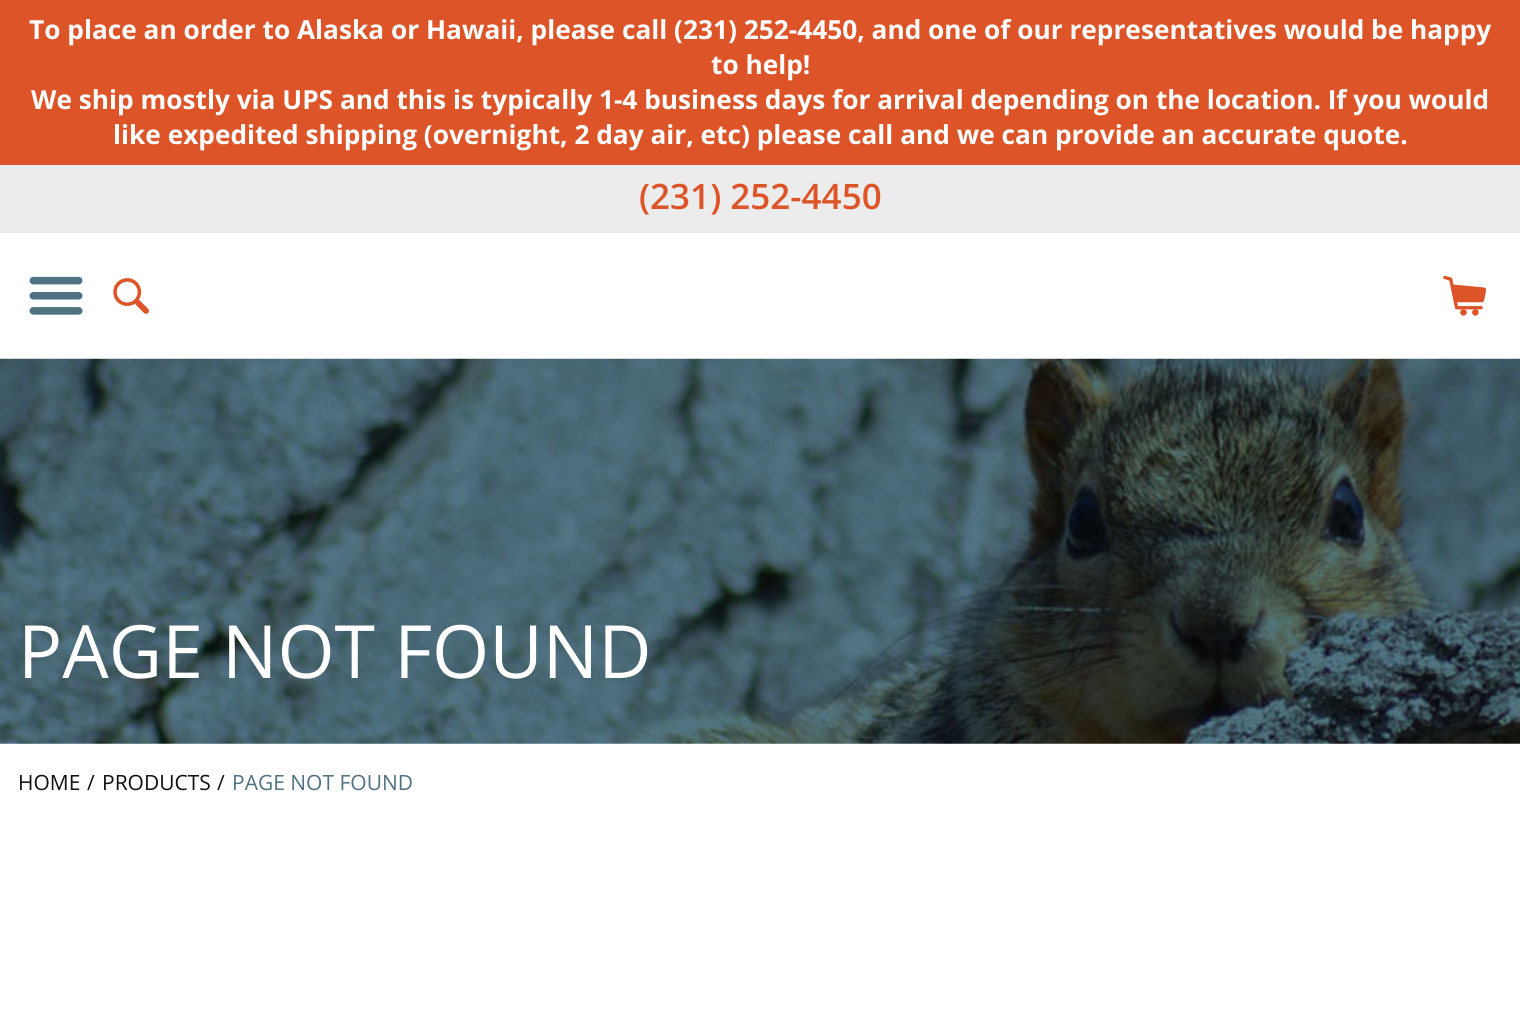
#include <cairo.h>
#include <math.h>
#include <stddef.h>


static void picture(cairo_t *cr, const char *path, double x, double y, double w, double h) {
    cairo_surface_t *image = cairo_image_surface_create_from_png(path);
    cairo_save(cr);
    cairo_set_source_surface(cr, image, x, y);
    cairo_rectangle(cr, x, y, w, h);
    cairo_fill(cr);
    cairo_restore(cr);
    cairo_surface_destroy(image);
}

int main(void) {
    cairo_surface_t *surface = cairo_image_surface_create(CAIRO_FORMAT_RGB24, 1520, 1009);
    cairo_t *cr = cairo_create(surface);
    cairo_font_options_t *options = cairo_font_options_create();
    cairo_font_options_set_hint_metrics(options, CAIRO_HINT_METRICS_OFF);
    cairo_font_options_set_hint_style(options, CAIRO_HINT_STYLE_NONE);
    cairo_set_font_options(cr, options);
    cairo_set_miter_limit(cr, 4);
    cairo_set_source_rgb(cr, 1, 1, 1);
    cairo_paint(cr);
    cairo_set_source_rgb(cr, 0.863, 0.329, 0.153);
    cairo_rectangle(cr, 0, 0, 1520, 165);
    cairo_fill(cr);
    cairo_select_font_face(cr, "Open Sans", CAIRO_FONT_SLANT_NORMAL, CAIRO_FONT_WEIGHT_BOLD);
    cairo_set_font_size(cr, 26.25);
    cairo_set_source_rgb(cr, 1, 1, 1);
    cairo_move_to(cr, 29, 39);
    cairo_show_text(cr, "To place an order to Alaska or Hawaii, please call (231) 252-4450, and one of our representatives would be happy");
    cairo_move_to(cr, 711, 74);
    cairo_show_text(cr, "to help!");
    cairo_move_to(cr, 31, 109);
    cairo_show_text(cr, "We ship mostly via UPS and this is typically 1-4 business days for arrival depending on the location. If you would");
    cairo_move_to(cr, 113, 144);
    cairo_show_text(cr, "like expedited shipping (overnight, 2 day air, etc) please call and we can provide an accurate quote.");
    cairo_set_source_rgb(cr, 0.922, 0.922, 0.922);
    cairo_rectangle(cr, 0, 165, 1520, 68);
    cairo_fill(cr);
    cairo_select_font_face(cr, "Open Sans SemiBold", CAIRO_FONT_SLANT_NORMAL, CAIRO_FONT_WEIGHT_NORMAL);
    cairo_set_font_size(cr, 35);
    cairo_set_source_rgb(cr, 0.863, 0.329, 0.153);
    cairo_move_to(cr, 639, 209);
    cairo_show_text(cr, "(231) 252-4450");
    picture(cr, "img1.png", 29, 276, 54, 39);
    picture(cr, "img2.png", 113, 278, 36, 36);
    picture(cr, "img3.png", 1443, 275, 44, 41);
    picture(cr, "img4.png", 0, 358, 1520, 386);
    cairo_select_font_face(cr, "Open Sans", CAIRO_FONT_SLANT_NORMAL, CAIRO_FONT_WEIGHT_NORMAL);
    cairo_set_font_size(cr, 73.5);
    cairo_set_source_rgb(cr, 1, 1, 1);
    cairo_move_to(cr, 18, 678);
    cairo_show_text(cr, "PAGE NOT FOUND");
    cairo_set_font_size(cr, 21);
    cairo_set_source_rgb(cr, 0.067, 0.067, 0.067);
    cairo_move_to(cr, 18, 790);
    cairo_show_text(cr, "HOME");
    cairo_move_to(cr, 87, 790);
    cairo_show_text(cr, "/");
    cairo_move_to(cr, 102, 790);
    cairo_show_text(cr, "PRODUCTS");
    cairo_move_to(cr, 217, 790);
    cairo_show_text(cr, "/");
    cairo_set_source_rgb(cr, 0.314, 0.451, 0.51);
    cairo_move_to(cr, 232, 790);
    cairo_show_text(cr, "PAGE NOT FOUND");
    cairo_surface_write_to_png(surface, "page.png");
    cairo_font_options_destroy(options);
    cairo_destroy(cr);
    cairo_surface_destroy(surface);
    return 0;
}
